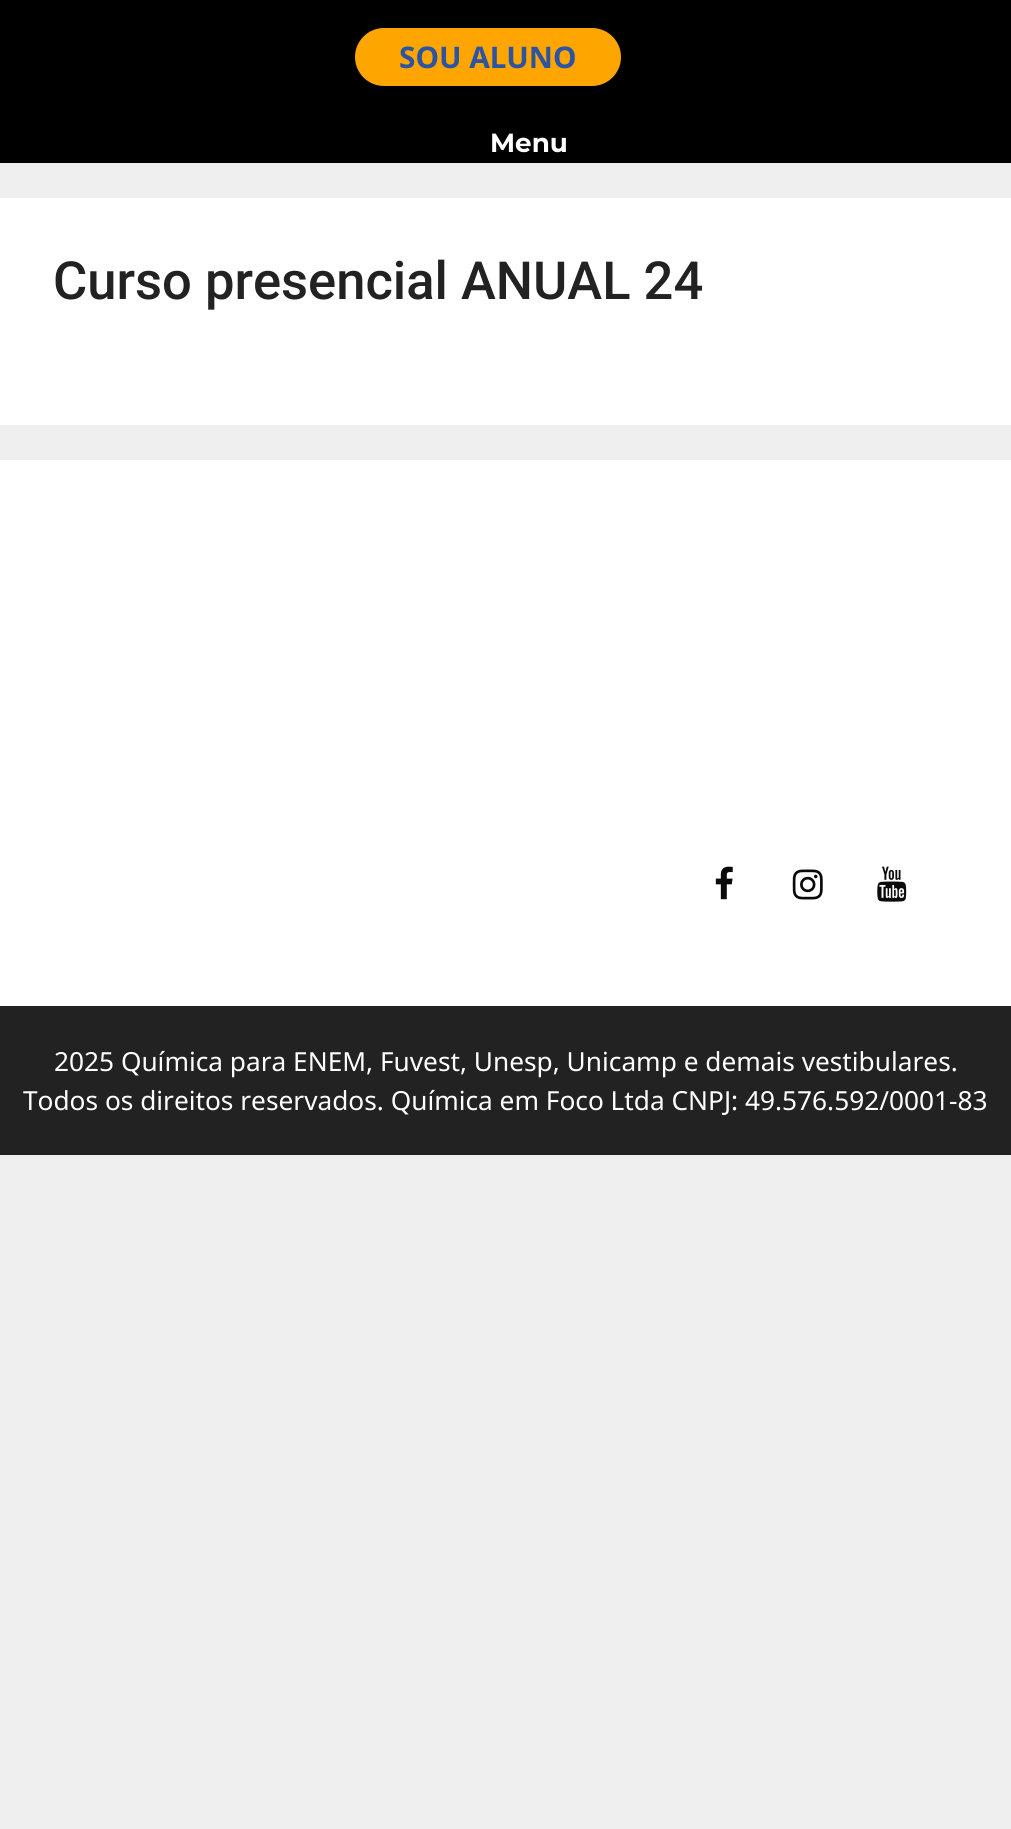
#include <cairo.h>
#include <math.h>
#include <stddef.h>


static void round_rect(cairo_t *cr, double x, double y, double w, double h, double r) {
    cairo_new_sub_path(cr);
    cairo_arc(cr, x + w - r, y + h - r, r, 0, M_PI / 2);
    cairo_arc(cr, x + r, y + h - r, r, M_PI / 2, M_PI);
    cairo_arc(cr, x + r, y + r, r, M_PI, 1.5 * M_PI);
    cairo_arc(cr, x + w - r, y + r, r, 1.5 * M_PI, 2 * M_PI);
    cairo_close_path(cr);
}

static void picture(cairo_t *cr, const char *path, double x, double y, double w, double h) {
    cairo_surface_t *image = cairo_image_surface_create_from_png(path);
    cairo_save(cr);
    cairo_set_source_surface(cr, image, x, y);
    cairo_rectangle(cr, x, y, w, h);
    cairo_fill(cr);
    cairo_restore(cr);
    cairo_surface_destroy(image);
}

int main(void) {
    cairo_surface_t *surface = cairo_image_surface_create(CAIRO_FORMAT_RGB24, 1011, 1829);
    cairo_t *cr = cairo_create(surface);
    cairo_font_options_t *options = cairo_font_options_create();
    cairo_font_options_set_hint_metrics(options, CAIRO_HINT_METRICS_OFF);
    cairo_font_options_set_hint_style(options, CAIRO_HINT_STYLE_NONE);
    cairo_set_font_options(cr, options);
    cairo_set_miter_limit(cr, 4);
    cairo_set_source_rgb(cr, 0.937, 0.937, 0.937);
    cairo_paint(cr);
    cairo_set_source_rgb(cr, 0, 0, 0);
    cairo_rectangle(cr, 0, 0, 1011, 163);
    cairo_fill(cr);
    cairo_set_source_rgb(cr, 1, 0.647, 0);
    round_rect(cr, 355, 28, 266, 58, 29);
    cairo_fill(cr);
    cairo_select_font_face(cr, "Noto Sans", CAIRO_FONT_SLANT_NORMAL, CAIRO_FONT_WEIGHT_BOLD);
    cairo_set_font_size(cr, 29.75);
    cairo_set_source_rgb(cr, 0.176, 0.329, 0.631);
    cairo_move_to(cr, 399, 68);
    cairo_show_text(cr, "SOU ALUNO");
    cairo_select_font_face(cr, "Montserrat", CAIRO_FONT_SLANT_NORMAL, CAIRO_FONT_WEIGHT_BOLD);
    cairo_set_font_size(cr, 26.25);
    cairo_set_source_rgb(cr, 1, 1, 1);
    cairo_move_to(cr, 490, 152);
    cairo_show_text(cr, "Menu");
    cairo_rectangle(cr, 0, 198, 1011, 227);
    cairo_fill(cr);
    cairo_select_font_face(cr, "Roboto Medium", CAIRO_FONT_SLANT_NORMAL, CAIRO_FONT_WEIGHT_NORMAL);
    cairo_set_font_size(cr, 52.5);
    cairo_set_source_rgb(cr, 0.133, 0.133, 0.133);
    cairo_move_to(cr, 53, 299);
    cairo_show_text(cr, "Curso presencial ANUAL 24");
    cairo_set_source_rgb(cr, 1, 1, 1);
    cairo_rectangle(cr, 0, 460, 1011, 546);
    cairo_fill(cr);
    picture(cr, "img1.png", 715, 866, 18, 34);
    picture(cr, "img2.png", 792, 869, 31, 31);
    picture(cr, "img3.png", 877, 866, 30, 36);
    cairo_set_source_rgb(cr, 0.133, 0.133, 0.133);
    cairo_rectangle(cr, 0, 1006, 1011, 149);
    cairo_fill(cr);
    cairo_select_font_face(cr, "Noto Sans", CAIRO_FONT_SLANT_NORMAL, CAIRO_FONT_WEIGHT_NORMAL);
    cairo_set_font_size(cr, 26.25);
    cairo_set_source_rgb(cr, 1, 1, 1);
    cairo_move_to(cr, 54, 1071);
    cairo_show_text(cr, "2025 Química para ENEM, Fuvest, Unesp, Unicamp e demais vestibulares.");
    cairo_move_to(cr, 23, 1110);
    cairo_show_text(cr, "Todos os direitos reservados. Química em Foco Ltda CNPJ: 49.576.592/0001-83");
    cairo_surface_write_to_png(surface, "page.png");
    cairo_font_options_destroy(options);
    cairo_destroy(cr);
    cairo_surface_destroy(surface);
    return 0;
}
